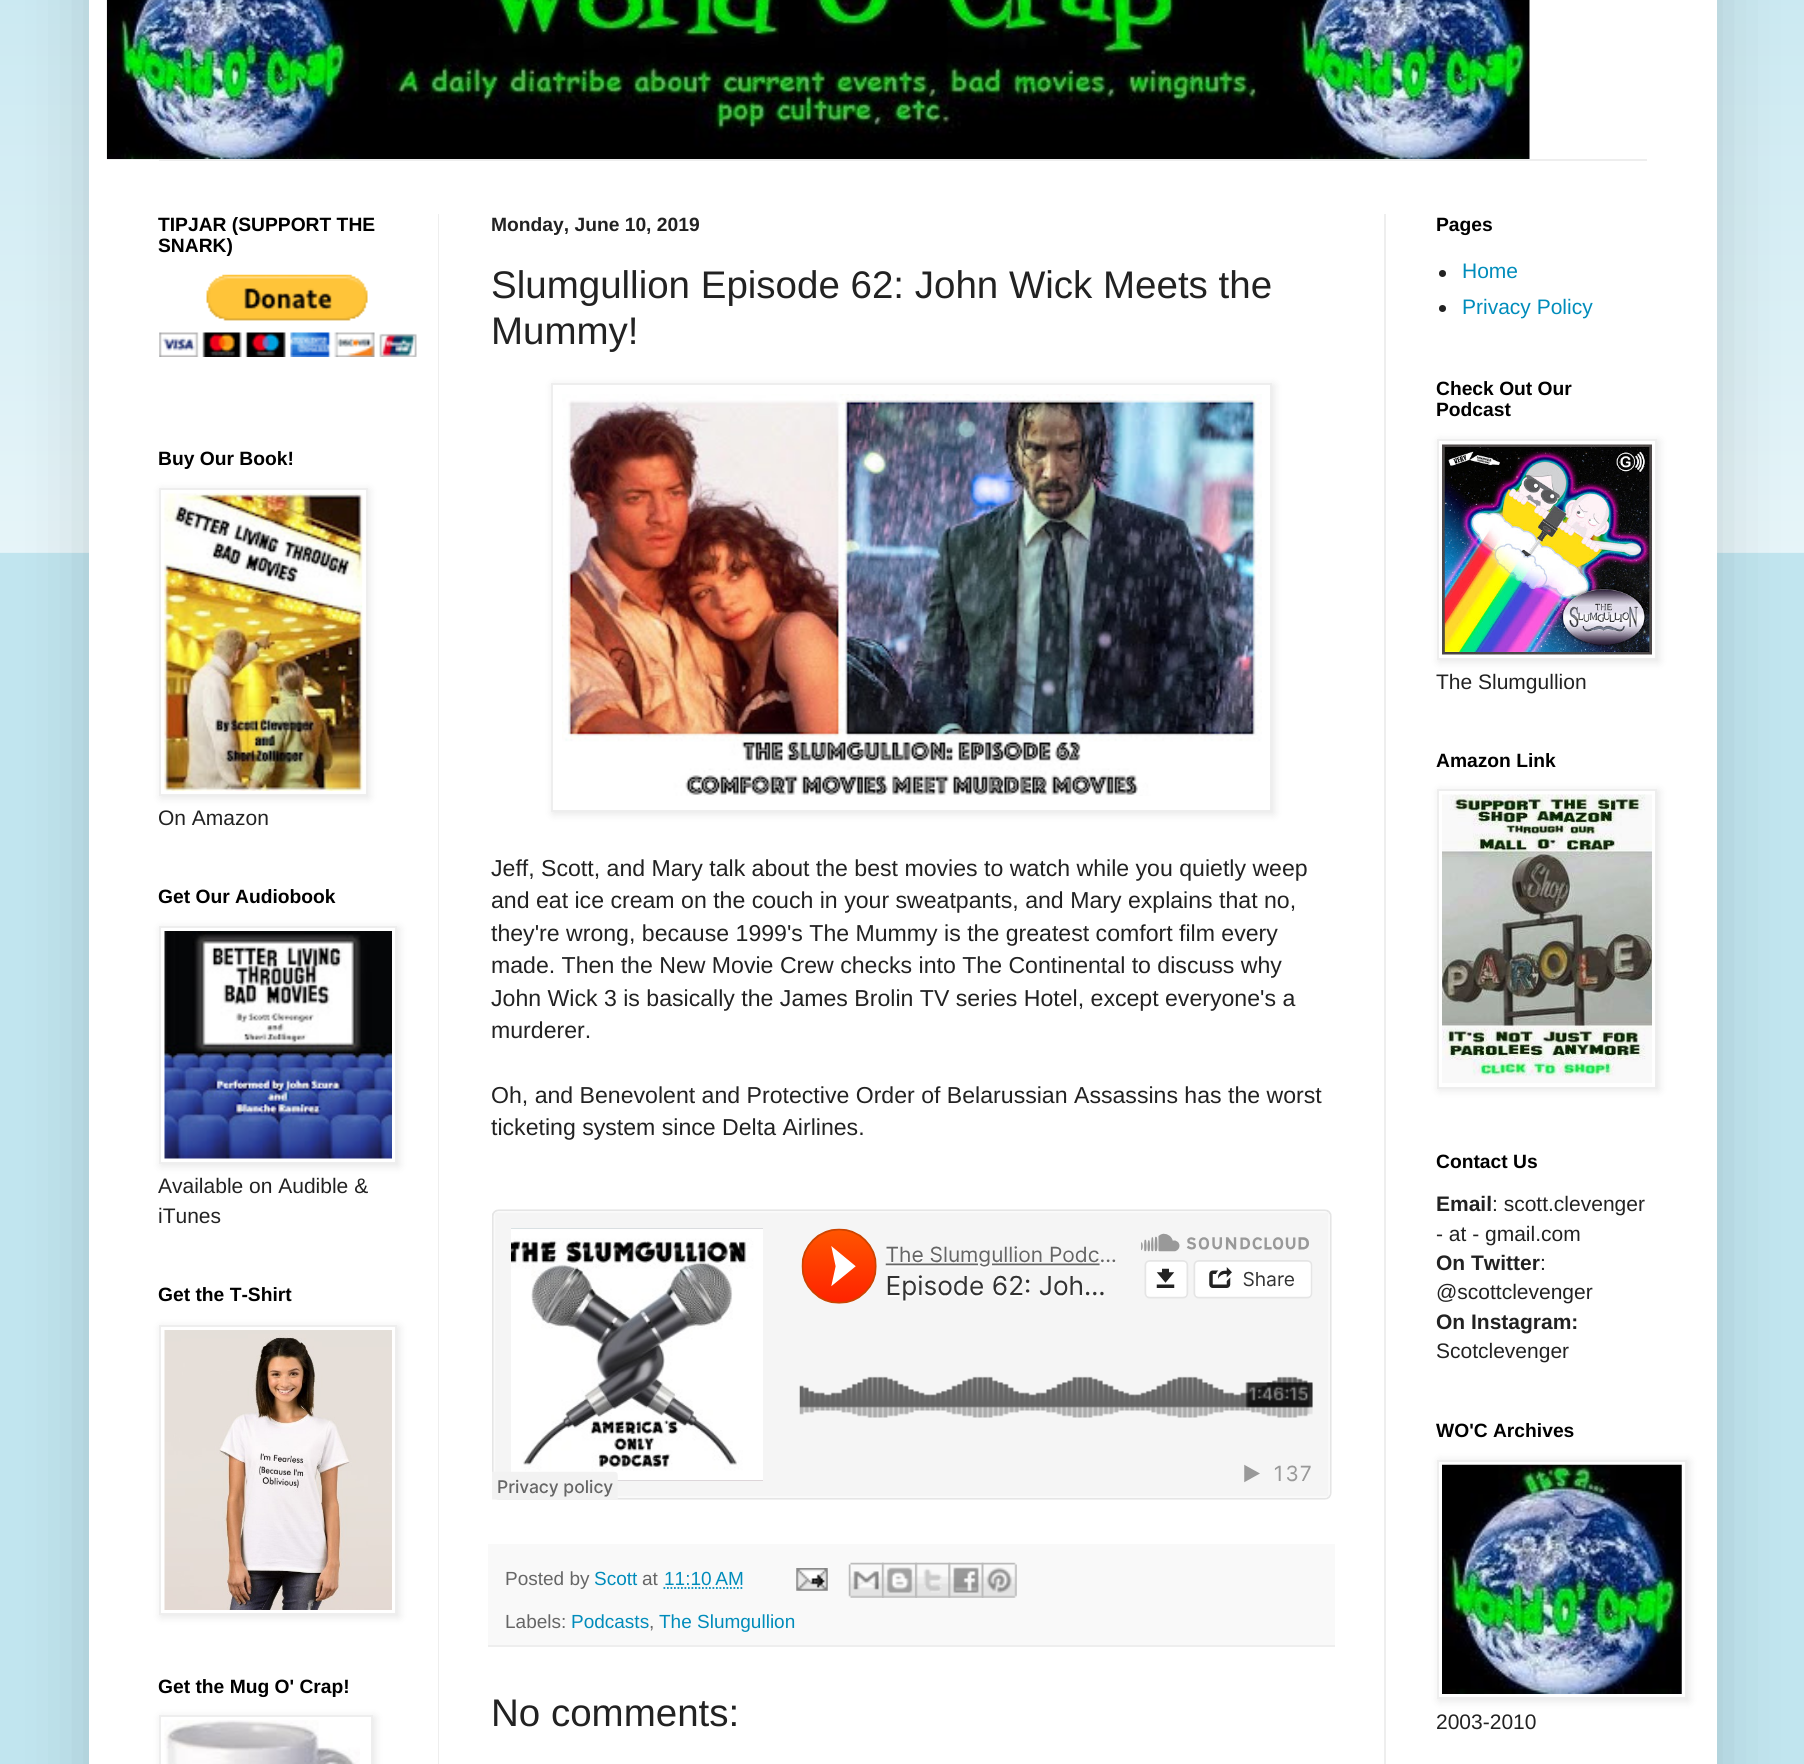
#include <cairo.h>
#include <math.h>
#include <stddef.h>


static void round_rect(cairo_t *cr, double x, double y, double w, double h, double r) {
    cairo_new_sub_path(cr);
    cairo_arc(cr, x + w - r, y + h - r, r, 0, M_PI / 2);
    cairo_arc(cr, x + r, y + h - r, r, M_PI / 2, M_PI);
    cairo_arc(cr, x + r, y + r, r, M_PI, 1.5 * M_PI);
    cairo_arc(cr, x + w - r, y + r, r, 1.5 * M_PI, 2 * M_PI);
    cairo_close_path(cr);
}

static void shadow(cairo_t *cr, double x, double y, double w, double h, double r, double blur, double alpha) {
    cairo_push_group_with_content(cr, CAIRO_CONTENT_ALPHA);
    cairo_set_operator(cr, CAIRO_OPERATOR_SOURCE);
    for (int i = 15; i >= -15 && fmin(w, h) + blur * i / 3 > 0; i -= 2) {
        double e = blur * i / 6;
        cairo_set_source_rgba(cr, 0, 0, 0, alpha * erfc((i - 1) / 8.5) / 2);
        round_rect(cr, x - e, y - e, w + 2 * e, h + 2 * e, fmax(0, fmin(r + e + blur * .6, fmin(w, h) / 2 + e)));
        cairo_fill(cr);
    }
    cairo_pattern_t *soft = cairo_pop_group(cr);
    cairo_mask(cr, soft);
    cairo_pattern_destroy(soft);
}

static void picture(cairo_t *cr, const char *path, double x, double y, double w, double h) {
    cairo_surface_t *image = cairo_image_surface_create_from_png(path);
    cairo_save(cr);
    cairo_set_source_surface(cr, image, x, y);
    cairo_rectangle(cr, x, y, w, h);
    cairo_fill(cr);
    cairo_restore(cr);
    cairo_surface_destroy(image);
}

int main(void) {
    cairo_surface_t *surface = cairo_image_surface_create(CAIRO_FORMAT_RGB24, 1804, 1764);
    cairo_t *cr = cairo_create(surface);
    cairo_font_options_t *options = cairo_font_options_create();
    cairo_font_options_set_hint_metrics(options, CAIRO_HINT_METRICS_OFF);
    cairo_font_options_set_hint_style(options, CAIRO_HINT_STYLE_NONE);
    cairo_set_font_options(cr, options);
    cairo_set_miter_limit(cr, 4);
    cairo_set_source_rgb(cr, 0.757, 0.898, 0.937);
    cairo_paint(cr);
    picture(cr, "img1.png", 0, 0, 1804, 553);
    cairo_set_source_rgb(cr, 0, 0, 0);
    shadow(cr, 89, -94, 1628, 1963, 0, 35, 0.15);
    cairo_set_source_rgb(cr, 1, 1, 1);
    cairo_rectangle(cr, 89, 0, 1628, 1764);
    cairo_fill(cr);
    picture(cr, "img2.png", 106, 0, 1424, 160);
    cairo_set_source_rgb(cr, 0.933, 0.933, 0.933);
    cairo_rectangle(cr, 159, 159, 1488, 2);
    cairo_fill(cr);
    cairo_rectangle(cr, 438, 214, 1, 1550);
    cairo_fill(cr);
    cairo_rectangle(cr, 1384, 214, 2, 1550);
    cairo_fill(cr);
    cairo_select_font_face(cr, "Liberation Sans", CAIRO_FONT_SLANT_NORMAL, CAIRO_FONT_WEIGHT_BOLD);
    cairo_set_font_size(cr, 19.25);
    cairo_set_source_rgb(cr, 0, 0, 0);
    cairo_move_to(cr, 158, 231);
    cairo_show_text(cr, "TIPJAR (SUPPORT THE");
    cairo_move_to(cr, 158, 252);
    cairo_show_text(cr, "SNARK)");
    picture(cr, "img3.png", 159, 274, 258, 83);
    cairo_move_to(cr, 158, 465);
    cairo_show_text(cr, "Buy Our Book!");
    cairo_set_source_rgb(cr, 0, 0, 0);
    shadow(cr, 161, 490, 208, 308, 0, 4.5, 0.1);
    cairo_set_source_rgb(cr, 1, 1, 1);
    cairo_rectangle(cr, 160, 489, 207, 306);
    cairo_fill_preserve(cr);
    cairo_set_source_rgb(cr, 0.933, 0.933, 0.933);
    cairo_stroke(cr);
    picture(cr, "img4.png", 164, 493, 199, 298);
    cairo_select_font_face(cr, "Liberation Sans", CAIRO_FONT_SLANT_NORMAL, CAIRO_FONT_WEIGHT_NORMAL);
    cairo_set_font_size(cr, 21);
    cairo_set_source_rgb(cr, 0.133, 0.133, 0.133);
    cairo_move_to(cr, 158, 825);
    cairo_show_text(cr, "On Amazon");
    cairo_select_font_face(cr, "Liberation Sans", CAIRO_FONT_SLANT_NORMAL, CAIRO_FONT_WEIGHT_BOLD);
    cairo_set_font_size(cr, 19.25);
    cairo_set_source_rgb(cr, 0, 0, 0);
    cairo_move_to(cr, 158, 903);
    cairo_show_text(cr, "Get Our Audiobook");
    cairo_set_source_rgb(cr, 0, 0, 0);
    shadow(cr, 161, 928, 238, 238, 0, 4.5, 0.1);
    cairo_set_source_rgb(cr, 1, 1, 1);
    cairo_rectangle(cr, 160, 927, 236, 236);
    cairo_fill_preserve(cr);
    cairo_set_source_rgb(cr, 0.933, 0.933, 0.933);
    cairo_stroke(cr);
    picture(cr, "img5.png", 164, 931, 228, 228);
    cairo_select_font_face(cr, "Liberation Sans", CAIRO_FONT_SLANT_NORMAL, CAIRO_FONT_WEIGHT_NORMAL);
    cairo_set_font_size(cr, 21);
    cairo_set_source_rgb(cr, 0.133, 0.133, 0.133);
    cairo_move_to(cr, 158, 1193);
    cairo_show_text(cr, "Available on Audible &");
    cairo_move_to(cr, 158, 1223);
    cairo_show_text(cr, "iTunes");
    cairo_select_font_face(cr, "Liberation Sans", CAIRO_FONT_SLANT_NORMAL, CAIRO_FONT_WEIGHT_BOLD);
    cairo_set_font_size(cr, 19.25);
    cairo_set_source_rgb(cr, 0, 0, 0);
    cairo_move_to(cr, 158, 1301);
    cairo_show_text(cr, "Get the T-Shirt");
    cairo_set_source_rgb(cr, 0, 0, 0);
    shadow(cr, 161, 1327, 238, 290, 0, 4.5, 0.1);
    cairo_set_source_rgb(cr, 1, 1, 1);
    cairo_rectangle(cr, 160, 1326, 236, 288);
    cairo_fill_preserve(cr);
    cairo_set_source_rgb(cr, 0.933, 0.933, 0.933);
    cairo_stroke(cr);
    picture(cr, "img6.png", 164, 1330, 228, 280);
    cairo_set_source_rgb(cr, 0, 0, 0);
    cairo_move_to(cr, 158, 1693);
    cairo_show_text(cr, "Get the Mug O' Crap!");
    cairo_set_source_rgb(cr, 0, 0, 0);
    shadow(cr, 161, 1717, 214, 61, 0, 4.5, 0.1);
    cairo_set_source_rgb(cr, 1, 1, 1);
    cairo_rectangle(cr, 160, 1716, 212, 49);
    cairo_fill_preserve(cr);
    cairo_set_source_rgb(cr, 0.933, 0.933, 0.933);
    cairo_stroke(cr);
    picture(cr, "img7.png", 164, 1720, 196, 44);
    cairo_set_source_rgb(cr, 0.133, 0.133, 0.133);
    cairo_move_to(cr, 491, 231);
    cairo_show_text(cr, "Monday, June 10, 2019");
    cairo_select_font_face(cr, "Liberation Sans", CAIRO_FONT_SLANT_NORMAL, CAIRO_FONT_WEIGHT_NORMAL);
    cairo_set_font_size(cr, 38.5);
    cairo_move_to(cr, 491, 298);
    cairo_show_text(cr, "Slumgullion Episode 62: John Wick Meets the");
    cairo_move_to(cr, 491, 344);
    cairo_show_text(cr, "Mummy!");
    cairo_set_source_rgb(cr, 0, 0, 0);
    shadow(cr, 553, 385, 721, 429, 0, 4.5, 0.1);
    cairo_set_source_rgb(cr, 1, 1, 1);
    cairo_rectangle(cr, 552, 384, 719, 427);
    cairo_fill_preserve(cr);
    cairo_set_source_rgb(cr, 0.933, 0.933, 0.933);
    cairo_stroke(cr);
    picture(cr, "img8.png", 562, 394, 700, 402);
    cairo_set_font_size(cr, 23.1);
    cairo_set_source_rgb(cr, 0.133, 0.133, 0.133);
    cairo_move_to(cr, 491, 876);
    cairo_show_text(cr, "Jeff, Scott, and Mary talk about the best movies to watch while you quietly weep");
    cairo_move_to(cr, 491, 908);
    cairo_show_text(cr, "and eat ice cream on the couch in your sweatpants, and Mary explains that no,");
    cairo_move_to(cr, 491, 941);
    cairo_show_text(cr, "they're wrong, because 1999's The Mummy is the greatest comfort film every");
    cairo_move_to(cr, 491, 973);
    cairo_show_text(cr, "made. Then the New Movie Crew checks into The Continental to discuss why");
    cairo_move_to(cr, 491, 1006);
    cairo_show_text(cr, "John Wick 3 is basically the James Brolin TV series Hotel, except everyone's a");
    cairo_move_to(cr, 491, 1038);
    cairo_show_text(cr, "murderer.");
    cairo_move_to(cr, 491, 1103);
    cairo_show_text(cr, "Oh, and Benevolent and Protective Order of Belarussian Assassins has the worst");
    cairo_move_to(cr, 491, 1135);
    cairo_show_text(cr, "ticketing system since Delta Airlines.");
    picture(cr, "img9.png", 492, 1209, 840, 291);
    cairo_set_source_rgb(cr, 0.976, 0.976, 0.976);
    cairo_rectangle(cr, 488, 1544, 847, 101);
    cairo_fill(cr);
    cairo_set_source_rgb(cr, 0.933, 0.933, 0.933);
    cairo_rectangle(cr, 488, 1645, 847, 2);
    cairo_fill(cr);
    cairo_set_font_size(cr, 19);
    cairo_set_source_rgb(cr, 0.4, 0.4, 0.4);
    cairo_move_to(cr, 505, 1585);
    cairo_show_text(cr, "Posted by");
    cairo_set_source_rgb(cr, 0, 0.549, 0.733);
    cairo_move_to(cr, 594, 1585);
    cairo_show_text(cr, "Scott");
    cairo_set_source_rgb(cr, 0.4, 0.4, 0.4);
    cairo_move_to(cr, 642, 1585);
    cairo_show_text(cr, "at");
    cairo_set_source_rgb(cr, 0, 0.549, 0.733);
    cairo_move_to(cr, 664, 1585);
    cairo_show_text(cr, "11:10 AM");
    cairo_new_path(cr);
    cairo_move_to(cr, 663.5, 1588);
    cairo_line_to(cr, 743, 1588);
    cairo_set_line_width(cr, 1.8);
    cairo_set_dash(cr, (double[]){1.75, 1.75}, 2, 0);
    cairo_stroke(cr);
    picture(cr, "img10.png", 796, 1568, 32, 23);
    picture(cr, "img11.png", 848, 1562, 36, 36);
    picture(cr, "img12.png", 882, 1562, 35, 36);
    picture(cr, "img13.png", 915, 1562, 36, 36);
    picture(cr, "img14.png", 948, 1562, 36, 36);
    picture(cr, "img15.png", 981, 1562, 36, 36);
    cairo_set_source_rgb(cr, 0.4, 0.4, 0.4);
    cairo_move_to(cr, 505, 1628);
    cairo_show_text(cr, "Labels:");
    cairo_set_source_rgb(cr, 0, 0.549, 0.733);
    cairo_move_to(cr, 571, 1628);
    cairo_show_text(cr, "Podcasts");
    cairo_set_source_rgb(cr, 0.4, 0.4, 0.4);
    cairo_move_to(cr, 649, 1628);
    cairo_show_text(cr, ",");
    cairo_set_source_rgb(cr, 0, 0.549, 0.733);
    cairo_move_to(cr, 659, 1628);
    cairo_show_text(cr, "The Slumgullion");
    cairo_set_font_size(cr, 38.5);
    cairo_set_source_rgb(cr, 0.133, 0.133, 0.133);
    cairo_move_to(cr, 491, 1726);
    cairo_show_text(cr, "No comments:");
    cairo_select_font_face(cr, "Liberation Sans", CAIRO_FONT_SLANT_NORMAL, CAIRO_FONT_WEIGHT_BOLD);
    cairo_set_font_size(cr, 19.25);
    cairo_set_source_rgb(cr, 0, 0, 0);
    cairo_move_to(cr, 1436, 231);
    cairo_show_text(cr, "Pages");
    cairo_set_source_rgb(cr, 0.133, 0.133, 0.133);
    cairo_new_path(cr);
    cairo_arc(cr, 1442.5, 273.5, 3.5, 0, 2 * M_PI);
    cairo_fill(cr);
    cairo_select_font_face(cr, "Liberation Sans", CAIRO_FONT_SLANT_NORMAL, CAIRO_FONT_WEIGHT_NORMAL);
    cairo_set_font_size(cr, 21);
    cairo_set_source_rgb(cr, 0, 0.549, 0.733);
    cairo_move_to(cr, 1462, 278);
    cairo_show_text(cr, "Home");
    cairo_set_source_rgb(cr, 0.133, 0.133, 0.133);
    cairo_new_path(cr);
    cairo_arc(cr, 1442.5, 308.5, 3.5, 0, 2 * M_PI);
    cairo_fill(cr);
    cairo_set_source_rgb(cr, 0, 0.549, 0.733);
    cairo_move_to(cr, 1462, 314);
    cairo_show_text(cr, "Privacy Policy");
    cairo_select_font_face(cr, "Liberation Sans", CAIRO_FONT_SLANT_NORMAL, CAIRO_FONT_WEIGHT_BOLD);
    cairo_set_font_size(cr, 19.25);
    cairo_set_source_rgb(cr, 0, 0, 0);
    cairo_move_to(cr, 1436, 395);
    cairo_show_text(cr, "Check Out Our");
    cairo_move_to(cr, 1436, 416);
    cairo_show_text(cr, "Podcast");
    cairo_set_source_rgb(cr, 0, 0, 0);
    shadow(cr, 1439, 441, 220, 221, 0, 4.5, 0.1);
    cairo_set_source_rgb(cr, 1, 1, 1);
    cairo_rectangle(cr, 1438, 440, 218, 219);
    cairo_fill_preserve(cr);
    cairo_set_source_rgb(cr, 0.933, 0.933, 0.933);
    cairo_set_line_width(cr, 2);
    cairo_set_dash(cr, NULL, 0, 0);
    cairo_stroke(cr);
    picture(cr, "img16.png", 1442, 444, 210, 211);
    cairo_select_font_face(cr, "Liberation Sans", CAIRO_FONT_SLANT_NORMAL, CAIRO_FONT_WEIGHT_NORMAL);
    cairo_set_font_size(cr, 21);
    cairo_set_source_rgb(cr, 0.133, 0.133, 0.133);
    cairo_move_to(cr, 1436, 689);
    cairo_show_text(cr, "The Slumgullion");
    cairo_select_font_face(cr, "Liberation Sans", CAIRO_FONT_SLANT_NORMAL, CAIRO_FONT_WEIGHT_BOLD);
    cairo_set_font_size(cr, 19.25);
    cairo_set_source_rgb(cr, 0, 0, 0);
    cairo_move_to(cr, 1436, 767);
    cairo_show_text(cr, "Amazon Link");
    cairo_set_source_rgb(cr, 0, 0, 0);
    shadow(cr, 1439, 791, 220, 299, 0, 4.5, 0.1);
    cairo_set_source_rgb(cr, 1, 1, 1);
    cairo_rectangle(cr, 1438, 790, 218, 298);
    cairo_fill_preserve(cr);
    cairo_set_source_rgb(cr, 0.933, 0.933, 0.933);
    cairo_stroke(cr);
    picture(cr, "img17.png", 1442, 794, 210, 289);
    cairo_set_source_rgb(cr, 0, 0, 0);
    cairo_move_to(cr, 1436, 1168);
    cairo_show_text(cr, "Contact Us");
    cairo_set_font_size(cr, 21);
    cairo_set_source_rgb(cr, 0.133, 0.133, 0.133);
    cairo_move_to(cr, 1436, 1211);
    cairo_show_text(cr, "Email");
    cairo_select_font_face(cr, "Liberation Sans", CAIRO_FONT_SLANT_NORMAL, CAIRO_FONT_WEIGHT_NORMAL);
    cairo_move_to(cr, 1492, 1211);
    cairo_show_text(cr, ": scott.clevenger");
    cairo_move_to(cr, 1436, 1241);
    cairo_show_text(cr, "- at - gmail.com");
    cairo_select_font_face(cr, "Liberation Sans", CAIRO_FONT_SLANT_NORMAL, CAIRO_FONT_WEIGHT_BOLD);
    cairo_move_to(cr, 1436, 1270);
    cairo_show_text(cr, "On Twitter");
    cairo_select_font_face(cr, "Liberation Sans", CAIRO_FONT_SLANT_NORMAL, CAIRO_FONT_WEIGHT_NORMAL);
    cairo_move_to(cr, 1540, 1270);
    cairo_show_text(cr, ":");
    cairo_move_to(cr, 1436, 1299);
    cairo_show_text(cr, "@scottclevenger");
    cairo_select_font_face(cr, "Liberation Sans", CAIRO_FONT_SLANT_NORMAL, CAIRO_FONT_WEIGHT_BOLD);
    cairo_move_to(cr, 1436, 1329);
    cairo_show_text(cr, "On Instagram:");
    cairo_select_font_face(cr, "Liberation Sans", CAIRO_FONT_SLANT_NORMAL, CAIRO_FONT_WEIGHT_NORMAL);
    cairo_move_to(cr, 1436, 1358);
    cairo_show_text(cr, "Scotclevenger");
    cairo_select_font_face(cr, "Liberation Sans", CAIRO_FONT_SLANT_NORMAL, CAIRO_FONT_WEIGHT_BOLD);
    cairo_set_font_size(cr, 19.25);
    cairo_set_source_rgb(cr, 0, 0, 0);
    cairo_move_to(cr, 1436, 1437);
    cairo_show_text(cr, "WO'C Archives");
    cairo_save(cr);
    cairo_set_fill_rule(cr, CAIRO_FILL_RULE_EVEN_ODD);
    cairo_new_path(cr);
    cairo_move_to(cr, 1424, 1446);
    cairo_line_to(cr, 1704, 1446);
    cairo_line_to(cr, 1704, 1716);
    cairo_line_to(cr, 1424, 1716);
    cairo_close_path(cr);
    cairo_move_to(cr, 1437, 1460);
    cairo_line_to(cr, 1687, 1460);
    cairo_line_to(cr, 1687, 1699);
    cairo_line_to(cr, 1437, 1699);
    cairo_close_path(cr);
    cairo_clip(cr);
    cairo_set_source_rgb(cr, 0, 0, 0);
    shadow(cr, 1439, 1461, 250, 240, 0, 4.5, 0.1);
    cairo_restore(cr);
    cairo_rectangle(cr, 1438, 1461, 248, 237);
    cairo_set_source_rgb(cr, 0.933, 0.933, 0.933);
    cairo_stroke(cr);
    picture(cr, "img18.png", 1442, 1464, 240, 230);
    cairo_select_font_face(cr, "Liberation Sans", CAIRO_FONT_SLANT_NORMAL, CAIRO_FONT_WEIGHT_NORMAL);
    cairo_set_font_size(cr, 21);
    cairo_set_source_rgb(cr, 0.133, 0.133, 0.133);
    cairo_move_to(cr, 1436, 1729);
    cairo_show_text(cr, "2003-2010");
    cairo_surface_write_to_png(surface, "page.png");
    cairo_font_options_destroy(options);
    cairo_destroy(cr);
    cairo_surface_destroy(surface);
    return 0;
}
